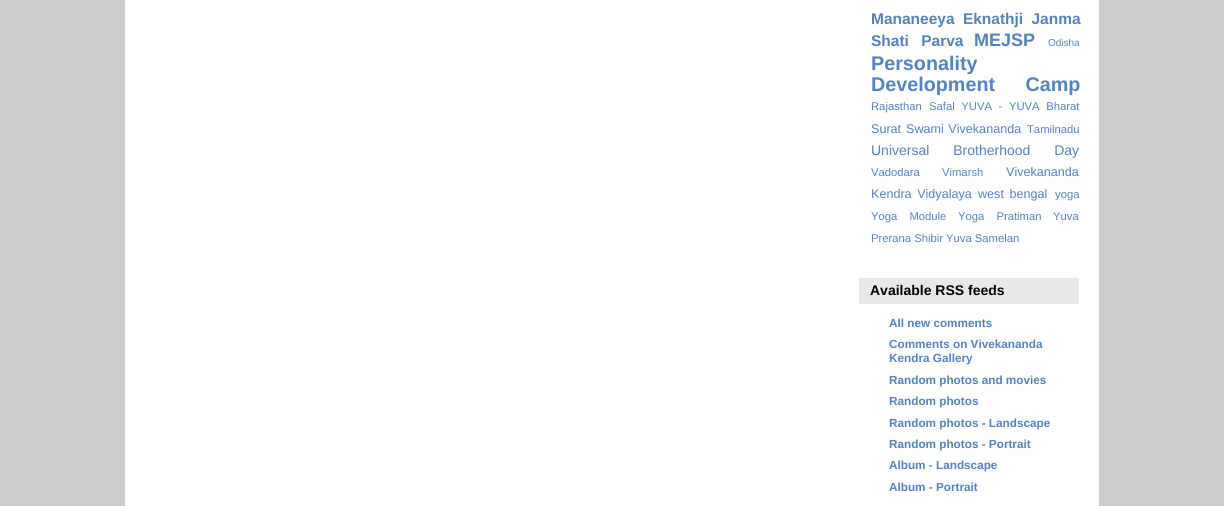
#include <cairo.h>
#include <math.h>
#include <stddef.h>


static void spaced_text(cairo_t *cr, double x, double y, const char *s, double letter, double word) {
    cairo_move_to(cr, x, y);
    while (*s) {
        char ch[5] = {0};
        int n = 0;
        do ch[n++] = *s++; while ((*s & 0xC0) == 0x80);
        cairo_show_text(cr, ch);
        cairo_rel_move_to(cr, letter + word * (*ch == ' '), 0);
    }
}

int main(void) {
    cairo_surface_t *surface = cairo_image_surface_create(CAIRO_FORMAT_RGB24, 1224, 506);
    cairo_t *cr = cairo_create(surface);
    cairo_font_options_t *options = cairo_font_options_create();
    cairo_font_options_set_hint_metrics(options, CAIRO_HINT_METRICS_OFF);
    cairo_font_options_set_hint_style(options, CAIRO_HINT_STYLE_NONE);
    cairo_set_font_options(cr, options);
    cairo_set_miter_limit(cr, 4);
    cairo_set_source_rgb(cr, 0.8, 0.8, 0.8);
    cairo_paint(cr);
    cairo_set_source_rgb(cr, 1, 1, 1);
    cairo_rectangle(cr, 125, 0, 974, 506);
    cairo_fill(cr);
    cairo_select_font_face(cr, "Liberation Sans", CAIRO_FONT_SLANT_NORMAL, CAIRO_FONT_WEIGHT_BOLD);
    cairo_set_font_size(cr, 15.5);
    cairo_set_source_rgb(cr, 0.325, 0.51, 0.749);
    spaced_text(cr, 871, 24, "Mananeeya Eknathji Janma", 0, 4);
    spaced_text(cr, 871, 46, "Shati Parva", 0, 8);
    cairo_set_font_size(cr, 18);
    cairo_move_to(cr, 974, 46);
    cairo_show_text(cr, "MEJSP");
    cairo_select_font_face(cr, "Liberation Sans", CAIRO_FONT_SLANT_NORMAL, CAIRO_FONT_WEIGHT_NORMAL);
    cairo_set_font_size(cr, 10);
    cairo_move_to(cr, 1048, 46);
    cairo_show_text(cr, "Odisha");
    cairo_select_font_face(cr, "Liberation Sans", CAIRO_FONT_SLANT_NORMAL, CAIRO_FONT_WEIGHT_BOLD);
    cairo_set_font_size(cr, 19.75);
    cairo_move_to(cr, 871, 70);
    cairo_show_text(cr, "Personality");
    spaced_text(cr, 871, 91, "Development Camp", 0, 25);
    cairo_select_font_face(cr, "Liberation Sans", CAIRO_FONT_SLANT_NORMAL, CAIRO_FONT_WEIGHT_NORMAL);
    cairo_set_font_size(cr, 11.25);
    cairo_move_to(cr, 871, 110);
    cairo_show_text(cr, "Rajasthan");
    spaced_text(cr, 929, 110, "Safal YUVA - YUVA Bharat", 0, 3.5);
    cairo_set_font_size(cr, 12.6);
    cairo_move_to(cr, 871, 133);
    cairo_show_text(cr, "Surat");
    spaced_text(cr, 906, 133, "Swami Vivekananda", 0, 1);
    cairo_set_font_size(cr, 11.25);
    cairo_move_to(cr, 1027, 133);
    cairo_show_text(cr, "Tamilnadu");
    cairo_set_font_size(cr, 14);
    spaced_text(cr, 871, 155, "Universal Brotherhood Day", 0, 20);
    cairo_set_font_size(cr, 11.25);
    cairo_move_to(cr, 871, 176);
    cairo_show_text(cr, "Vadodara");
    cairo_move_to(cr, 942, 176);
    cairo_show_text(cr, "Vimarsh");
    cairo_set_font_size(cr, 12.6);
    cairo_move_to(cr, 1006, 176);
    cairo_show_text(cr, "Vivekananda");
    spaced_text(cr, 871, 198, "Kendra Vidyalaya", 0, 2);
    spaced_text(cr, 978, 198, "west bengal", 0, 2);
    cairo_set_font_size(cr, 11.25);
    cairo_move_to(cr, 1055, 198);
    cairo_show_text(cr, "yoga");
    spaced_text(cr, 871, 220, "Yoga Module", 0, 9);
    spaced_text(cr, 958, 220, "Yoga Pratiman", 0, 9);
    cairo_move_to(cr, 1053, 220);
    cairo_show_text(cr, "Yuva");
    cairo_move_to(cr, 871, 242);
    cairo_show_text(cr, "Prerana Shibir");
    cairo_move_to(cr, 946, 242);
    cairo_show_text(cr, "Yuva Samelan");
    cairo_set_source_rgb(cr, 0.91, 0.91, 0.91);
    cairo_rectangle(cr, 859, 278, 220, 26);
    cairo_fill(cr);
    cairo_select_font_face(cr, "Liberation Sans", CAIRO_FONT_SLANT_NORMAL, CAIRO_FONT_WEIGHT_BOLD);
    cairo_set_font_size(cr, 14);
    cairo_set_source_rgb(cr, 0, 0, 0);
    cairo_move_to(cr, 870, 295);
    cairo_show_text(cr, "Available RSS feeds");
    cairo_set_font_size(cr, 11.75);
    cairo_set_source_rgb(cr, 0.325, 0.51, 0.749);
    cairo_move_to(cr, 889, 327);
    cairo_show_text(cr, "All new comments");
    cairo_move_to(cr, 889, 348);
    cairo_show_text(cr, "Comments on Vivekananda");
    cairo_move_to(cr, 889, 362);
    cairo_show_text(cr, "Kendra Gallery");
    cairo_move_to(cr, 889, 384);
    cairo_show_text(cr, "Random photos and movies");
    cairo_move_to(cr, 889, 405);
    cairo_show_text(cr, "Random photos");
    cairo_move_to(cr, 889, 427);
    cairo_show_text(cr, "Random photos - Landscape");
    cairo_move_to(cr, 889, 448);
    cairo_show_text(cr, "Random photos - Portrait");
    cairo_move_to(cr, 889, 469);
    cairo_show_text(cr, "Album - Landscape");
    cairo_move_to(cr, 889, 491);
    cairo_show_text(cr, "Album - Portrait");
    cairo_surface_write_to_png(surface, "page.png");
    cairo_font_options_destroy(options);
    cairo_destroy(cr);
    cairo_surface_destroy(surface);
    return 0;
}
